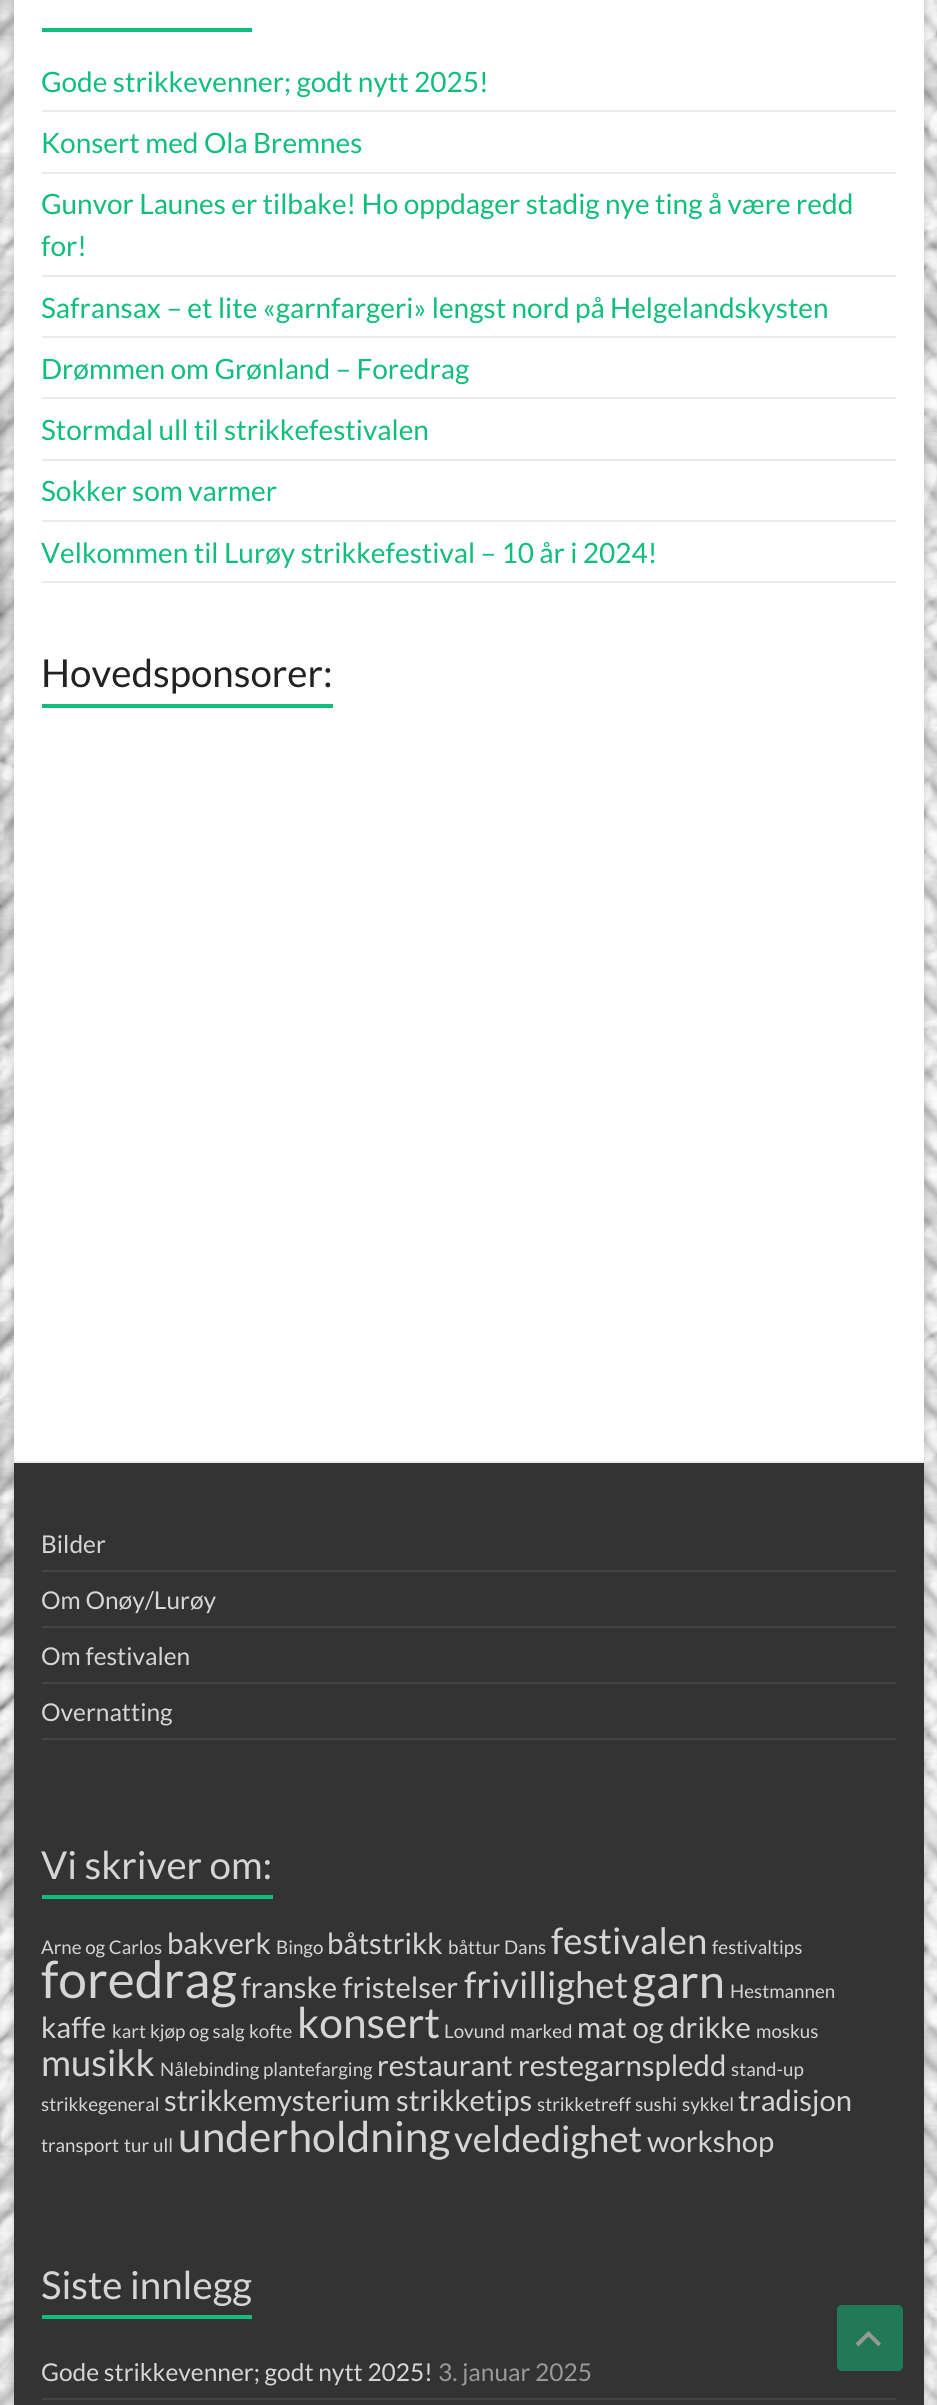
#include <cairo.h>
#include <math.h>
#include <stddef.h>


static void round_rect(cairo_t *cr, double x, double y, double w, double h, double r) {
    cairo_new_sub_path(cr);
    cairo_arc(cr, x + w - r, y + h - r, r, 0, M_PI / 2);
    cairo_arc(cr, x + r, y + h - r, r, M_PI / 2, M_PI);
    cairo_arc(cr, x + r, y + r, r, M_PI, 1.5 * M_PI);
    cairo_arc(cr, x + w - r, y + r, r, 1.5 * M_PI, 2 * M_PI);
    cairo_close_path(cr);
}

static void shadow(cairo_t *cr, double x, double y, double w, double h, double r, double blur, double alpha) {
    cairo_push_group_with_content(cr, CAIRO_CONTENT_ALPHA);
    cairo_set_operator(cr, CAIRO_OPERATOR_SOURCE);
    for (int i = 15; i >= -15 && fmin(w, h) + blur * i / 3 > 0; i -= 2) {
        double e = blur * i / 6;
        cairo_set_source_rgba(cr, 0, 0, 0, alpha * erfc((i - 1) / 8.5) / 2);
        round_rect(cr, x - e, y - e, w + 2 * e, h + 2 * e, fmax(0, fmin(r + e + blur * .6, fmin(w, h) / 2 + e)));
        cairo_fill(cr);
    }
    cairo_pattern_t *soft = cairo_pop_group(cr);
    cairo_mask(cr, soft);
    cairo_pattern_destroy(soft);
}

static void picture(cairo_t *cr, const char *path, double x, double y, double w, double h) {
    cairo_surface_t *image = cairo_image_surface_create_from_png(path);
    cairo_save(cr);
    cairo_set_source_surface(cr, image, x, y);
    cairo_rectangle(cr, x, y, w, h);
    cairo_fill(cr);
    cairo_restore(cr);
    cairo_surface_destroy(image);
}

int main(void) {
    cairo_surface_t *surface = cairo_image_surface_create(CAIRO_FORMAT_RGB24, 937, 2405);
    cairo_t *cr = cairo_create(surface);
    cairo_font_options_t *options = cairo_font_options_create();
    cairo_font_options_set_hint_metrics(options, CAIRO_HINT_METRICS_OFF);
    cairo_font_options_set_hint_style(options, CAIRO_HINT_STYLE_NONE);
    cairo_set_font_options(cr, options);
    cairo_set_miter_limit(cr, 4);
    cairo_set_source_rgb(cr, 1, 1, 1);
    cairo_paint(cr);
    picture(cr, "img1.png", 0, 0, 937, 2405);
    cairo_set_source_rgb(cr, 0.392, 0.392, 0.392);
    shadow(cr, 14, -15, 910, 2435, 0, 5, 0.3);
    cairo_set_source_rgb(cr, 1, 1, 1);
    cairo_rectangle(cr, 14, 0, 910, 1461);
    cairo_fill(cr);
    cairo_set_source_rgb(cr, 0.059, 0.745, 0.486);
    cairo_rectangle(cr, 42, 28, 210, 4);
    cairo_fill(cr);
    cairo_set_source_rgb(cr, 0.918, 0.918, 0.918);
    cairo_rectangle(cr, 42, 110, 854, 2);
    cairo_fill(cr);
    cairo_select_font_face(cr, "Lato", CAIRO_FONT_SLANT_NORMAL, CAIRO_FONT_WEIGHT_NORMAL);
    cairo_set_font_size(cr, 28);
    cairo_set_source_rgb(cr, 0.059, 0.745, 0.486);
    cairo_move_to(cr, 41, 92);
    cairo_show_text(cr, "Gode strikkevenner; godt nytt 2025!");
    cairo_set_source_rgb(cr, 0.918, 0.918, 0.918);
    cairo_rectangle(cr, 42, 172, 854, 2);
    cairo_fill(cr);
    cairo_set_source_rgb(cr, 0.059, 0.745, 0.486);
    cairo_move_to(cr, 41, 153);
    cairo_show_text(cr, "Konsert med Ola Bremnes");
    cairo_set_source_rgb(cr, 0.918, 0.918, 0.918);
    cairo_rectangle(cr, 42, 275, 854, 2);
    cairo_fill(cr);
    cairo_set_source_rgb(cr, 0.059, 0.745, 0.486);
    cairo_move_to(cr, 41, 214);
    cairo_show_text(cr, "Gunvor Launes er tilbake! Ho oppdager stadig nye ting å være redd");
    cairo_move_to(cr, 41, 256);
    cairo_show_text(cr, "for!");
    cairo_set_source_rgb(cr, 0.918, 0.918, 0.918);
    cairo_rectangle(cr, 42, 336, 854, 2);
    cairo_fill(cr);
    cairo_set_source_rgb(cr, 0.059, 0.745, 0.486);
    cairo_move_to(cr, 41, 318);
    cairo_show_text(cr, "Safransax – et lite «garnfargeri» lengst nord på Helgelandskysten");
    cairo_set_source_rgb(cr, 0.918, 0.918, 0.918);
    cairo_rectangle(cr, 42, 397, 854, 2);
    cairo_fill(cr);
    cairo_set_source_rgb(cr, 0.059, 0.745, 0.486);
    cairo_move_to(cr, 41, 379);
    cairo_show_text(cr, "Drømmen om Grønland – Foredrag");
    cairo_set_source_rgb(cr, 0.918, 0.918, 0.918);
    cairo_rectangle(cr, 42, 459, 854, 2);
    cairo_fill(cr);
    cairo_set_source_rgb(cr, 0.059, 0.745, 0.486);
    cairo_move_to(cr, 41, 440);
    cairo_show_text(cr, "Stormdal ull til strikkefestivalen");
    cairo_set_source_rgb(cr, 0.918, 0.918, 0.918);
    cairo_rectangle(cr, 42, 520, 854, 2);
    cairo_fill(cr);
    cairo_set_source_rgb(cr, 0.059, 0.745, 0.486);
    cairo_move_to(cr, 41, 501);
    cairo_show_text(cr, "Sokker som varmer");
    cairo_set_source_rgb(cr, 0.918, 0.918, 0.918);
    cairo_rectangle(cr, 42, 581, 854, 2);
    cairo_fill(cr);
    cairo_set_source_rgb(cr, 0.059, 0.745, 0.486);
    cairo_move_to(cr, 41, 563);
    cairo_show_text(cr, "Velkommen til Lurøy strikkefestival – 10 år i 2024!");
    cairo_set_font_size(cr, 38.5);
    cairo_set_source_rgb(cr, 0.133, 0.133, 0.133);
    cairo_move_to(cr, 41, 687);
    cairo_show_text(cr, "Hovedsponsorer:");
    cairo_set_source_rgb(cr, 0.059, 0.745, 0.486);
    cairo_rectangle(cr, 42, 704, 291, 4);
    cairo_fill(cr);
    cairo_set_source_rgb(cr, 0.2, 0.2, 0.2);
    cairo_rectangle(cr, 14, 1463, 910, 942);
    cairo_fill(cr);
    cairo_set_source_rgb(cr, 0.918, 0.918, 0.918);
    cairo_rectangle(cr, 14, 1461, 910, 2);
    cairo_fill(cr);
    cairo_set_source_rgb(cr, 0.267, 0.267, 0.267);
    cairo_rectangle(cr, 42, 1570, 854, 2);
    cairo_fill(cr);
    cairo_set_font_size(cr, 24.5);
    cairo_set_source_rgb(cr, 0.835, 0.835, 0.835);
    cairo_move_to(cr, 41, 1553);
    cairo_show_text(cr, "Bilder");
    cairo_set_source_rgb(cr, 0.267, 0.267, 0.267);
    cairo_rectangle(cr, 42, 1626, 854, 2);
    cairo_fill(cr);
    cairo_set_source_rgb(cr, 0.835, 0.835, 0.835);
    cairo_move_to(cr, 41, 1609);
    cairo_show_text(cr, "Om Onøy/Lurøy");
    cairo_set_source_rgb(cr, 0.267, 0.267, 0.267);
    cairo_rectangle(cr, 42, 1682, 854, 2);
    cairo_fill(cr);
    cairo_set_source_rgb(cr, 0.835, 0.835, 0.835);
    cairo_move_to(cr, 41, 1665);
    cairo_show_text(cr, "Om festivalen");
    cairo_set_source_rgb(cr, 0.267, 0.267, 0.267);
    cairo_rectangle(cr, 42, 1738, 854, 2);
    cairo_fill(cr);
    cairo_set_source_rgb(cr, 0.835, 0.835, 0.835);
    cairo_move_to(cr, 41, 1721);
    cairo_show_text(cr, "Overnatting");
    cairo_set_font_size(cr, 38.5);
    cairo_move_to(cr, 41, 1879);
    cairo_show_text(cr, "Vi skriver om:");
    cairo_set_source_rgb(cr, 0.059, 0.745, 0.486);
    cairo_rectangle(cr, 42, 1895, 231, 4);
    cairo_fill(cr);
    cairo_set_font_size(cr, 18.75);
    cairo_set_source_rgb(cr, 0.835, 0.835, 0.835);
    cairo_move_to(cr, 41, 1954);
    cairo_show_text(cr, "Arne og Carlos");
    cairo_set_font_size(cr, 29.25);
    cairo_move_to(cr, 167, 1954);
    cairo_show_text(cr, "bakverk");
    cairo_set_font_size(cr, 18.75);
    cairo_move_to(cr, 276, 1954);
    cairo_show_text(cr, "Bingo");
    cairo_set_font_size(cr, 29.25);
    cairo_move_to(cr, 327, 1954);
    cairo_show_text(cr, "båtstrikk");
    cairo_set_font_size(cr, 18.75);
    cairo_move_to(cr, 448, 1954);
    cairo_show_text(cr, "båttur");
    cairo_move_to(cr, 504, 1954);
    cairo_show_text(cr, "Dans");
    cairo_set_font_size(cr, 36.5);
    cairo_move_to(cr, 551, 1954);
    cairo_show_text(cr, "festivalen");
    cairo_set_font_size(cr, 18.75);
    cairo_move_to(cr, 712, 1954);
    cairo_show_text(cr, "festivaltips");
    cairo_set_font_size(cr, 51.5);
    cairo_move_to(cr, 41, 1998);
    cairo_show_text(cr, "foredrag");
    cairo_set_font_size(cr, 29.25);
    cairo_move_to(cr, 241, 1998);
    cairo_show_text(cr, "franske fristelser");
    cairo_set_font_size(cr, 36.5);
    cairo_move_to(cr, 464, 1998);
    cairo_show_text(cr, "frivillighet");
    cairo_set_font_size(cr, 47);
    cairo_move_to(cr, 632, 1998);
    cairo_show_text(cr, "garn");
    cairo_set_font_size(cr, 18.75);
    cairo_move_to(cr, 730, 1998);
    cairo_show_text(cr, "Hestmannen");
    cairo_set_font_size(cr, 29.25);
    cairo_move_to(cr, 41, 2038);
    cairo_show_text(cr, "kaffe");
    cairo_set_font_size(cr, 18.75);
    cairo_move_to(cr, 112, 2038);
    cairo_show_text(cr, "kart");
    cairo_move_to(cr, 150, 2038);
    cairo_show_text(cr, "kjøp og salg");
    cairo_move_to(cr, 249, 2038);
    cairo_show_text(cr, "kofte");
    cairo_set_font_size(cr, 42.5);
    cairo_move_to(cr, 297, 2038);
    cairo_show_text(cr, "konsert");
    cairo_set_font_size(cr, 18.75);
    cairo_move_to(cr, 444, 2038);
    cairo_show_text(cr, "Lovund");
    cairo_move_to(cr, 510, 2038);
    cairo_show_text(cr, "marked");
    cairo_set_font_size(cr, 29.25);
    cairo_move_to(cr, 577, 2038);
    cairo_show_text(cr, "mat og drikke");
    cairo_set_font_size(cr, 18.75);
    cairo_move_to(cr, 756, 2038);
    cairo_show_text(cr, "moskus");
    cairo_set_font_size(cr, 36.5);
    cairo_move_to(cr, 41, 2076);
    cairo_show_text(cr, "musikk");
    cairo_set_font_size(cr, 18.75);
    cairo_move_to(cr, 160, 2076);
    cairo_show_text(cr, "Nålebinding");
    cairo_move_to(cr, 263, 2076);
    cairo_show_text(cr, "plantefarging");
    cairo_set_font_size(cr, 29.25);
    cairo_move_to(cr, 377, 2076);
    cairo_show_text(cr, "restaurant");
    cairo_move_to(cr, 518, 2076);
    cairo_show_text(cr, "restegarnspledd");
    cairo_set_font_size(cr, 18.75);
    cairo_move_to(cr, 731, 2076);
    cairo_show_text(cr, "stand-up");
    cairo_move_to(cr, 41, 2111);
    cairo_show_text(cr, "strikkegeneral");
    cairo_set_font_size(cr, 29.25);
    cairo_move_to(cr, 164, 2111);
    cairo_show_text(cr, "strikkemysterium");
    cairo_move_to(cr, 396, 2111);
    cairo_show_text(cr, "strikketips");
    cairo_set_font_size(cr, 18.75);
    cairo_move_to(cr, 537, 2111);
    cairo_show_text(cr, "strikketreff");
    cairo_move_to(cr, 635, 2111);
    cairo_show_text(cr, "sushi");
    cairo_move_to(cr, 682, 2111);
    cairo_show_text(cr, "sykkel");
    cairo_set_font_size(cr, 29.25);
    cairo_move_to(cr, 738, 2111);
    cairo_show_text(cr, "tradisjon");
    cairo_set_font_size(cr, 18.75);
    cairo_move_to(cr, 41, 2152);
    cairo_show_text(cr, "transport");
    cairo_move_to(cr, 124, 2152);
    cairo_show_text(cr, "tur");
    cairo_move_to(cr, 153, 2152);
    cairo_show_text(cr, "ull");
    cairo_set_font_size(cr, 42.5);
    cairo_move_to(cr, 178, 2152);
    cairo_show_text(cr, "underholdning");
    cairo_set_font_size(cr, 36.5);
    cairo_move_to(cr, 454, 2152);
    cairo_show_text(cr, "veldedighet");
    cairo_set_font_size(cr, 29.25);
    cairo_move_to(cr, 647, 2152);
    cairo_show_text(cr, "workshop");
    cairo_set_font_size(cr, 38.5);
    cairo_move_to(cr, 41, 2299);
    cairo_show_text(cr, "Siste innlegg");
    cairo_set_source_rgb(cr, 0.059, 0.745, 0.486);
    cairo_rectangle(cr, 42, 2315, 210, 4);
    cairo_fill(cr);
    cairo_set_source_rgb(cr, 0.267, 0.267, 0.267);
    cairo_rectangle(cr, 42, 2398, 854, 2);
    cairo_fill(cr);
    cairo_set_font_size(cr, 24.5);
    cairo_set_source_rgb(cr, 0.835, 0.835, 0.835);
    cairo_move_to(cr, 41, 2381);
    cairo_show_text(cr, "Gode strikkevenner; godt nytt 2025!");
    cairo_set_source_rgb(cr, 0.6, 0.6, 0.6);
    cairo_move_to(cr, 438, 2381);
    cairo_show_text(cr, "3. januar 2025");
    cairo_set_source_rgb(cr, 0.129, 0.475, 0.345);
    round_rect(cr, 837, 2305, 66, 66, 5);
    cairo_fill(cr);
    cairo_set_source_rgb(cr, 0.6, 0.6, 0.6);
    cairo_new_path(cr);
    cairo_move_to(cr, 878.5, 2346.5);
    cairo_line_to(cr, 868.5, 2336.5);
    cairo_line_to(cr, 858.5, 2346.5);
    cairo_line_to(cr, 855.5, 2343.5);
    cairo_line_to(cr, 868.5, 2331);
    cairo_line_to(cr, 881, 2343.5);
    cairo_close_path(cr);
    cairo_fill(cr);
    cairo_surface_write_to_png(surface, "page.png");
    cairo_font_options_destroy(options);
    cairo_destroy(cr);
    cairo_surface_destroy(surface);
    return 0;
}
